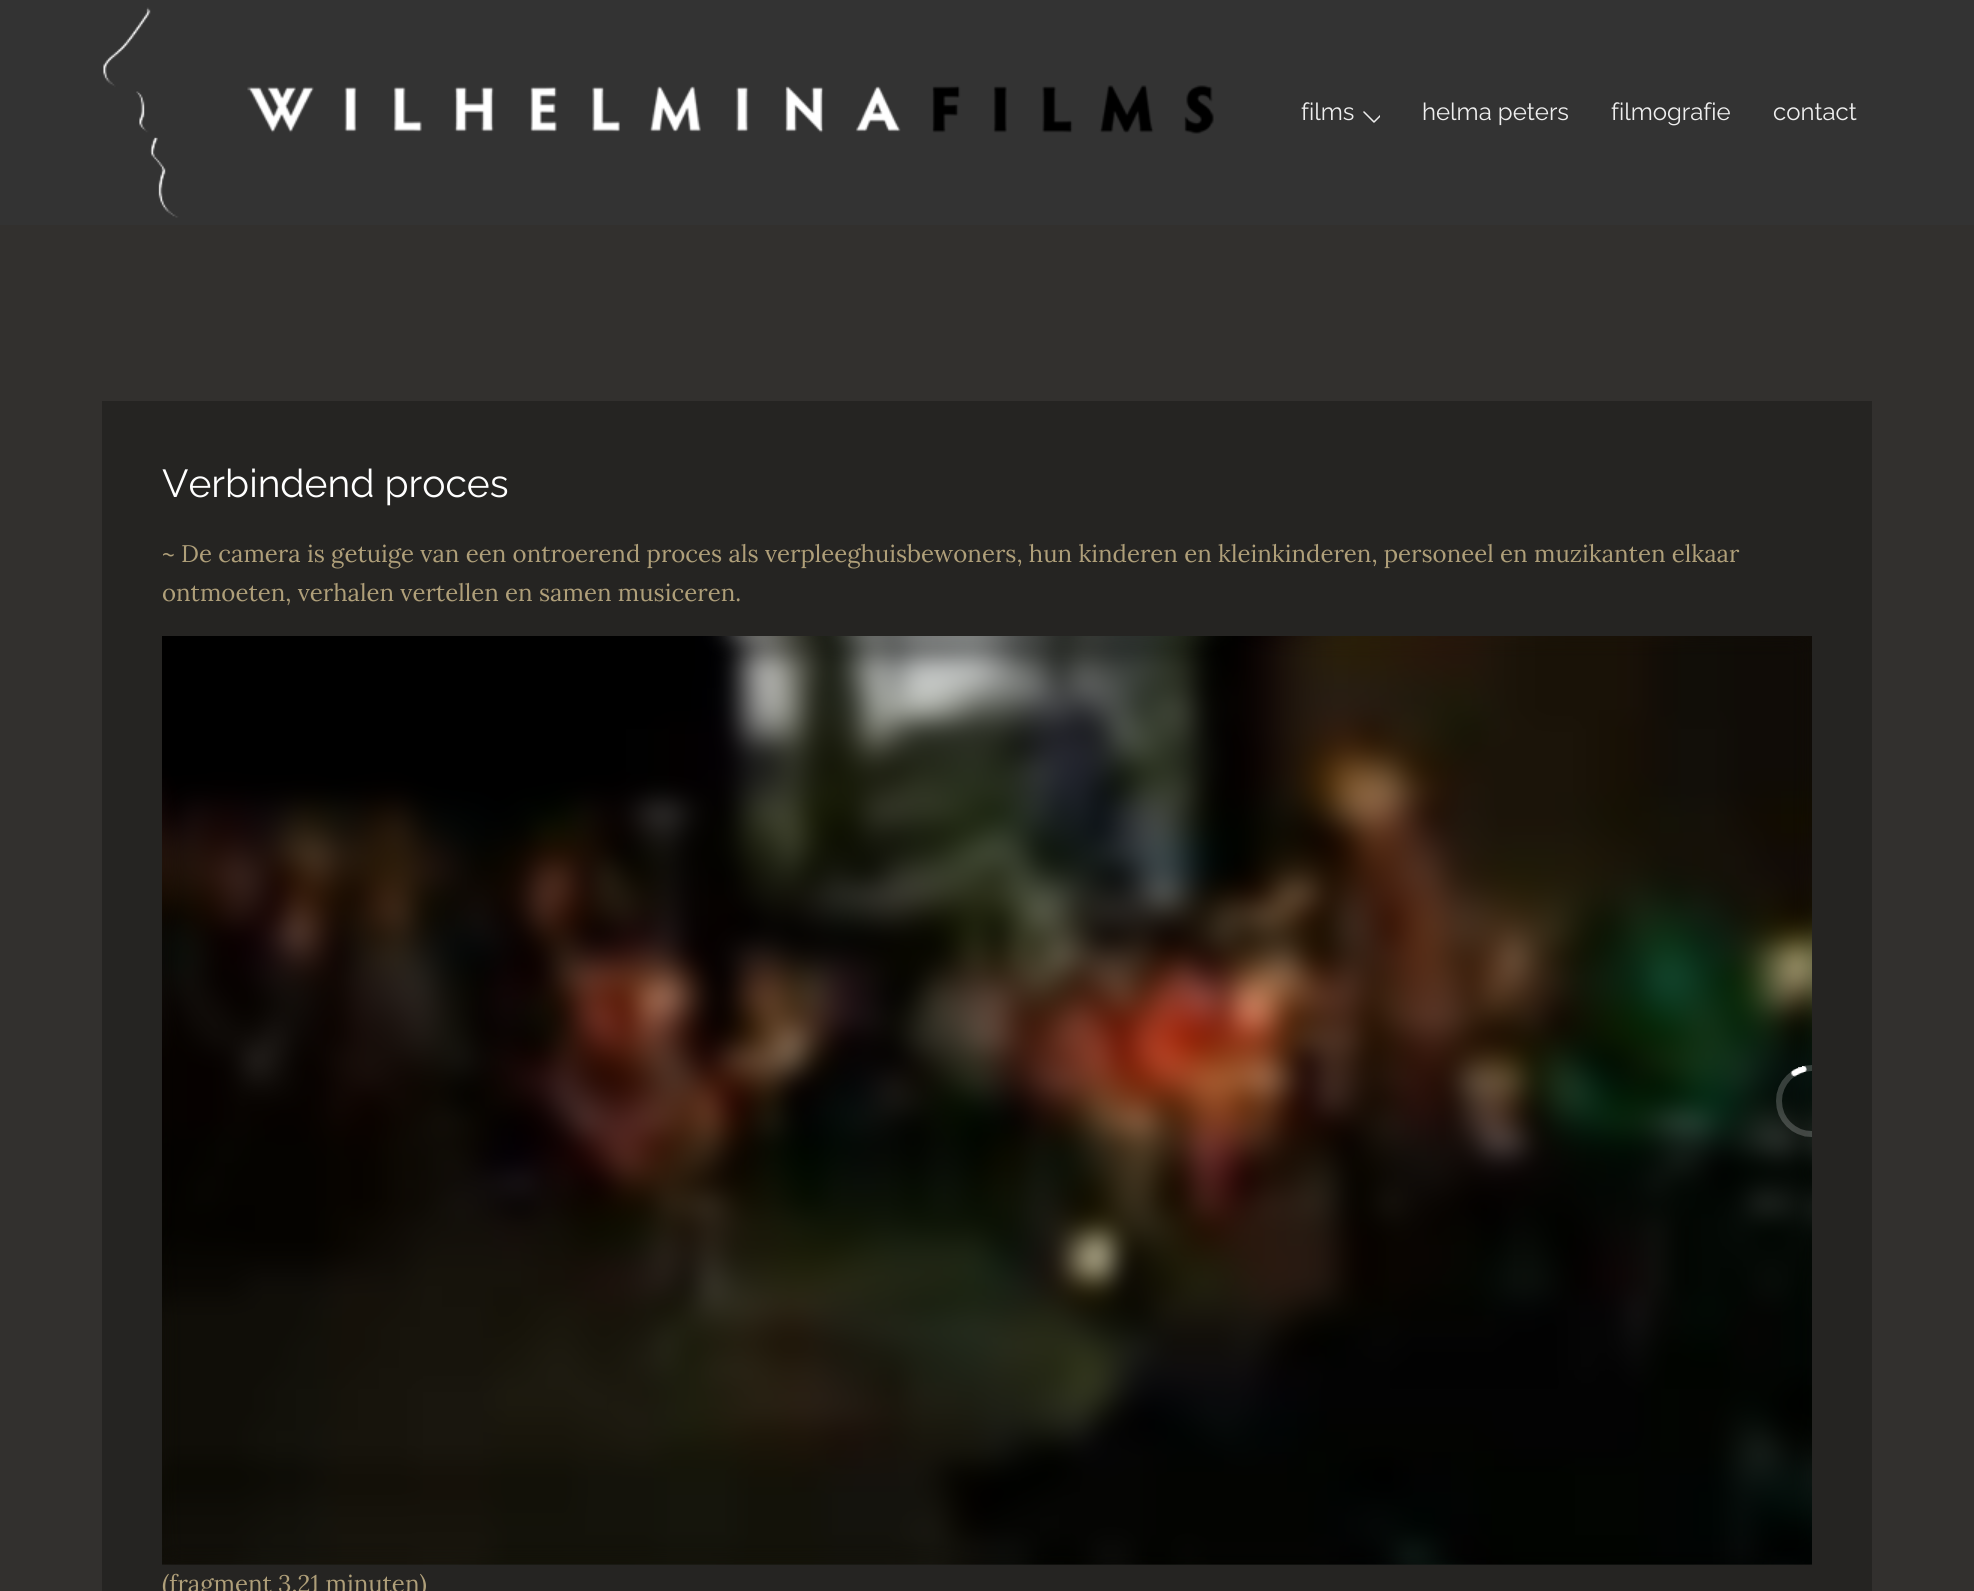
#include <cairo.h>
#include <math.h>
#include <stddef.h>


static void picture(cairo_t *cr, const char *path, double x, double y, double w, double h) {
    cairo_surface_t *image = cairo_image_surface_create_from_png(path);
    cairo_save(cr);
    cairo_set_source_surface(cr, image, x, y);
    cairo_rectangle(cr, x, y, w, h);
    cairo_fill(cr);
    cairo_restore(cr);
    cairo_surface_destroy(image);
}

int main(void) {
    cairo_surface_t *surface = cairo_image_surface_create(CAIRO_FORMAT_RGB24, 1974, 1591);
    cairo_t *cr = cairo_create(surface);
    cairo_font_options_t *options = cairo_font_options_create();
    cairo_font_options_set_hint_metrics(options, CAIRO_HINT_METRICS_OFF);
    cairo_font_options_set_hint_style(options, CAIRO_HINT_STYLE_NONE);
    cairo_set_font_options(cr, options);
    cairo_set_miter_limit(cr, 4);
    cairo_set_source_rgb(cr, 0.196, 0.188, 0.18);
    cairo_paint(cr);
    cairo_set_source_rgb(cr, 0.2, 0.2, 0.2);
    cairo_rectangle(cr, 0, 0, 1974, 225);
    cairo_fill(cr);
    picture(cr, "img1.png", 103, 7, 1111, 211);
    cairo_select_font_face(cr, "Raleway", CAIRO_FONT_SLANT_NORMAL, CAIRO_FONT_WEIGHT_NORMAL);
    cairo_set_font_size(cr, 24);
    cairo_set_source_rgb(cr, 0.933, 0.933, 0.933);
    cairo_move_to(cr, 1301, 120);
    cairo_show_text(cr, "films");
    picture(cr, "img2.png", 1363, 111, 17, 12);
    cairo_move_to(cr, 1422, 120);
    cairo_show_text(cr, "helma peters");
    cairo_move_to(cr, 1611, 120);
    cairo_show_text(cr, "filmografie");
    cairo_move_to(cr, 1773, 120);
    cairo_show_text(cr, "contact");
    cairo_set_source_rgb(cr, 0.145, 0.141, 0.133);
    cairo_rectangle(cr, 102, 401, 1770, 1190);
    cairo_fill(cr);
    cairo_set_font_size(cr, 39);
    cairo_set_source_rgb(cr, 1, 1, 1);
    cairo_move_to(cr, 162, 497);
    cairo_show_text(cr, "Verbindend proces");
    cairo_select_font_face(cr, "Lora", CAIRO_FONT_SLANT_NORMAL, CAIRO_FONT_WEIGHT_NORMAL);
    cairo_set_font_size(cr, 24);
    cairo_set_source_rgb(cr, 0.686, 0.624, 0.475);
    cairo_move_to(cr, 162, 562);
    cairo_show_text(cr, "~ De camera is getuige van een ontroerend proces als verpleeghuisbewoners, hun kinderen en kleinkinderen, personeel en muzikanten elkaar");
    cairo_move_to(cr, 162, 601);
    cairo_show_text(cr, "ontmoeten, verhalen vertellen en samen musiceren.");
    picture(cr, "img3.png", 162, 636, 1650, 929);
    cairo_move_to(cr, 162, 1592);
    cairo_show_text(cr, "(fragment 3,21 minuten)");
    cairo_surface_write_to_png(surface, "page.png");
    cairo_font_options_destroy(options);
    cairo_destroy(cr);
    cairo_surface_destroy(surface);
    return 0;
}
